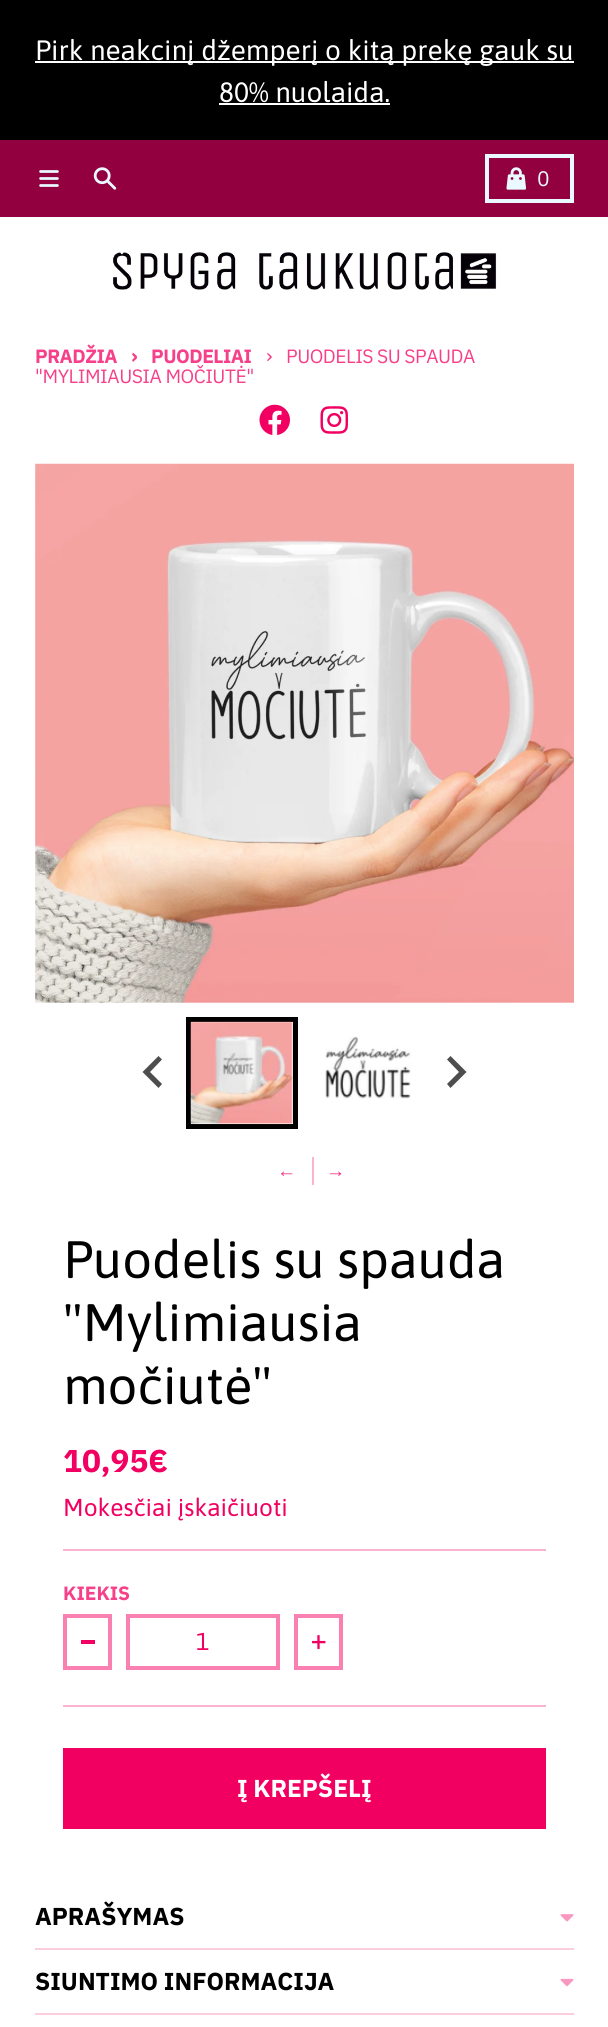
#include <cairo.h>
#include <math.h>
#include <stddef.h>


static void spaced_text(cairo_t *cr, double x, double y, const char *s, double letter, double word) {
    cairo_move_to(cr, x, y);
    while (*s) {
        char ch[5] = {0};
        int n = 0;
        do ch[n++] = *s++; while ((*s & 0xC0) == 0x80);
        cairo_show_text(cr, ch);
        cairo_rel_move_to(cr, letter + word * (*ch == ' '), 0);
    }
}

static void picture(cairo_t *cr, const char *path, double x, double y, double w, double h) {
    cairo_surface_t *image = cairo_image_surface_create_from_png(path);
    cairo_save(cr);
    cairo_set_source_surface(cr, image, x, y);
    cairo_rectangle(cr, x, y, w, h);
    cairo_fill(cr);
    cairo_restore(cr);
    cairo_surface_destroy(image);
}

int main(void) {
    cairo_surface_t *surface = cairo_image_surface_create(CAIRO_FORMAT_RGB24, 608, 2027);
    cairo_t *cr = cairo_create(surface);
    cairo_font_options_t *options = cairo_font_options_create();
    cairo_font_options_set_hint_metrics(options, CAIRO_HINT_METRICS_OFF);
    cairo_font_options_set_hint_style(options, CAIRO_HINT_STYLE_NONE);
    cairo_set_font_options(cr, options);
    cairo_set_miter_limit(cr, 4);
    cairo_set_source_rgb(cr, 0.576, 0, 0.247);
    cairo_paint(cr);
    cairo_set_source_rgb(cr, 0, 0, 0);
    cairo_rectangle(cr, 0, 0, 608, 140);
    cairo_fill(cr);
    cairo_set_source_rgb(cr, 1, 1, 1);
    cairo_rectangle(cr, 35, 61, 539, 2);
    cairo_fill(cr);
    cairo_select_font_face(cr, "Asap", CAIRO_FONT_SLANT_NORMAL, CAIRO_FONT_WEIGHT_NORMAL);
    cairo_set_font_size(cr, 28);
    cairo_move_to(cr, 35, 60);
    cairo_show_text(cr, "Pirk neakcinį džemperį o kitą prekę gauk su");
    cairo_move_to(cr, 219, 102);
    cairo_show_text(cr, "80% nuolaida.");
    cairo_rectangle(cr, 219, 103, 171, 2);
    cairo_fill(cr);
    picture(cr, "img1.png", 39, 170, 20, 17);
    picture(cr, "img2.png", 93, 167, 24, 23);
    cairo_rectangle(cr, 487, 156, 85, 45);
    cairo_set_source_rgb(cr, 0.914, 0.976, 1);
    cairo_set_line_width(cr, 4);
    cairo_stroke(cr);
    picture(cr, "img3.png", 506, 167, 20, 23);
    cairo_select_font_face(cr, "IBM Plex Sans", CAIRO_FONT_SLANT_NORMAL, CAIRO_FONT_WEIGHT_NORMAL);
    cairo_set_font_size(cr, 21);
    cairo_move_to(cr, 537, 186);
    cairo_show_text(cr, "0");
    cairo_set_source_rgb(cr, 1, 1, 1);
    cairo_rectangle(cr, 0, 217, 608, 1810);
    cairo_fill(cr);
    picture(cr, "img4.png", 113, 252, 384, 38);
    cairo_select_font_face(cr, "IBM Plex Sans", CAIRO_FONT_SLANT_NORMAL, CAIRO_FONT_WEIGHT_BOLD);
    cairo_set_font_size(cr, 19.25);
    cairo_set_source_rgb(cr, 0.961, 0.251, 0.537);
    spaced_text(cr, 35, 363, "PRADŽIA", -0.5, 0);
    cairo_set_font_size(cr, 21);
    spaced_text(cr, 131, 363, "›", -0.5, 0);
    cairo_set_font_size(cr, 19.25);
    spaced_text(cr, 151, 363, "PUODELIAI", -0.5, 0);
    cairo_select_font_face(cr, "IBM Plex Sans", CAIRO_FONT_SLANT_NORMAL, CAIRO_FONT_WEIGHT_NORMAL);
    cairo_set_font_size(cr, 21);
    spaced_text(cr, 266, 363, "›", -0.5, 0);
    cairo_set_font_size(cr, 19.25);
    spaced_text(cr, 286, 363, "PUODELIS SU SPAUDA", -0.5, 0);
    spaced_text(cr, 35, 383, "\"MYLIMIAUSIA MOČIUTĖ\"", -0.5, 0);
    picture(cr, "img5.png", 259, 404, 31, 31);
    picture(cr, "img6.png", 320, 406, 29, 28);
    picture(cr, "img7.png", 35, 463, 539, 540);
    cairo_rectangle(cr, 188.5, 1019.5, 107, 107);
    cairo_set_source_rgb(cr, 0, 0, 0);
    cairo_set_line_width(cr, 5);
    cairo_stroke(cr);
    picture(cr, "img8.png", 190, 1021, 103, 104);
    picture(cr, "img9.png", 325, 1036, 86, 63);
    cairo_set_source_rgb(cr, 0.302, 0.302, 0.302);
    cairo_new_path(cr);
    cairo_move_to(cr, 158.5, 1056);
    cairo_line_to(cr, 162, 1059.5);
    cairo_line_to(cr, 150, 1072);
    cairo_line_to(cr, 162, 1084);
    cairo_line_to(cr, 158.5, 1088);
    cairo_line_to(cr, 142.5, 1072);
    cairo_close_path(cr);
    cairo_fill(cr);
    cairo_new_path(cr);
    cairo_move_to(cr, 450.5, 1056);
    cairo_line_to(cr, 447, 1059.5);
    cairo_line_to(cr, 459, 1072);
    cairo_line_to(cr, 447, 1084);
    cairo_line_to(cr, 450.5, 1088);
    cairo_line_to(cr, 466.5, 1072);
    cairo_close_path(cr);
    cairo_fill(cr);
    cairo_select_font_face(cr, "Liberation Sans", CAIRO_FONT_SLANT_NORMAL, CAIRO_FONT_WEIGHT_BOLD);
    cairo_set_source_rgb(cr, 0.961, 0.2, 0.506);
    cairo_move_to(cr, 277, 1177);
    cairo_show_text(cr, "←");
    cairo_set_source_rgb(cr, 0.984, 0.702, 0.816);
    cairo_rectangle(cr, 312, 1157, 2, 28);
    cairo_fill(cr);
    cairo_set_source_rgb(cr, 0.961, 0.2, 0.506);
    cairo_move_to(cr, 326, 1177);
    cairo_show_text(cr, "→");
    cairo_select_font_face(cr, "Asap", CAIRO_FONT_SLANT_NORMAL, CAIRO_FONT_WEIGHT_NORMAL);
    cairo_set_font_size(cr, 52.5);
    cairo_set_source_rgb(cr, 0, 0, 0);
    cairo_move_to(cr, 63, 1278);
    cairo_show_text(cr, "Puodelis su spauda");
    cairo_move_to(cr, 63, 1341);
    cairo_show_text(cr, "\"Mylimiausia");
    cairo_move_to(cr, 63, 1404);
    cairo_show_text(cr, "močiutė\"");
    cairo_select_font_face(cr, "IBM Plex Sans", CAIRO_FONT_SLANT_NORMAL, CAIRO_FONT_WEIGHT_BOLD);
    cairo_set_font_size(cr, 31.5);
    cairo_set_source_rgb(cr, 0.949, 0, 0.38);
    cairo_move_to(cr, 63, 1472);
    cairo_show_text(cr, "10,95€");
    cairo_select_font_face(cr, "Asap", CAIRO_FONT_SLANT_NORMAL, CAIRO_FONT_WEIGHT_NORMAL);
    cairo_set_font_size(cr, 24.5);
    cairo_move_to(cr, 63, 1516);
    cairo_show_text(cr, "Mokesčiai įskaičiuoti");
    cairo_set_source_rgb(cr, 0.984, 0.702, 0.816);
    cairo_rectangle(cr, 63, 1549, 483, 2);
    cairo_fill(cr);
    cairo_select_font_face(cr, "IBM Plex Sans", CAIRO_FONT_SLANT_NORMAL, CAIRO_FONT_WEIGHT_BOLD);
    cairo_set_font_size(cr, 19.25);
    cairo_set_source_rgb(cr, 0.961, 0.251, 0.537);
    cairo_move_to(cr, 63, 1600);
    cairo_show_text(cr, "KIEKIS");
    cairo_rectangle(cr, 65, 1616, 45, 52);
    cairo_set_source_rgb(cr, 0.976, 0.502, 0.69);
    cairo_set_line_width(cr, 4);
    cairo_stroke(cr);
    cairo_set_source_rgb(cr, 0.949, 0, 0.38);
    cairo_rectangle(cr, 81, 1640, 14, 4);
    cairo_fill(cr);
    cairo_rectangle(cr, 128, 1616, 150, 52);
    cairo_set_source_rgb(cr, 0.976, 0.502, 0.69);
    cairo_stroke(cr);
    cairo_select_font_face(cr, "Asap", CAIRO_FONT_SLANT_NORMAL, CAIRO_FONT_WEIGHT_NORMAL);
    cairo_set_font_size(cr, 24.5);
    cairo_set_source_rgb(cr, 0.949, 0, 0.38);
    cairo_move_to(cr, 196, 1650);
    cairo_show_text(cr, "1");
    cairo_rectangle(cr, 296, 1616, 45, 52);
    cairo_set_source_rgb(cr, 0.976, 0.502, 0.69);
    cairo_stroke(cr);
    picture(cr, "img10.png", 312, 1635, 14, 15);
    cairo_set_source_rgb(cr, 0.984, 0.702, 0.816);
    cairo_rectangle(cr, 63, 1705, 483, 2);
    cairo_fill(cr);
    cairo_set_source_rgb(cr, 0.949, 0, 0.38);
    cairo_rectangle(cr, 63, 1748, 483, 81);
    cairo_fill(cr);
    cairo_select_font_face(cr, "IBM Plex Sans", CAIRO_FONT_SLANT_NORMAL, CAIRO_FONT_WEIGHT_BOLD);
    cairo_set_source_rgb(cr, 1, 1, 1);
    cairo_move_to(cr, 237, 1797);
    cairo_show_text(cr, "Į KREPŠELĮ");
    cairo_set_source_rgb(cr, 0.988, 0.8, 0.875);
    cairo_rectangle(cr, 35, 1948, 539, 2);
    cairo_fill(cr);
    cairo_set_source_rgb(cr, 0, 0, 0);
    cairo_move_to(cr, 35, 1925);
    cairo_show_text(cr, "APRAŠYMAS");
    picture(cr, "img11.png", 560, 1914, 14, 8);
    cairo_set_source_rgb(cr, 0.988, 0.8, 0.875);
    cairo_rectangle(cr, 35, 2013, 539, 2);
    cairo_fill(cr);
    cairo_set_source_rgb(cr, 0, 0, 0);
    cairo_move_to(cr, 35, 1990);
    cairo_show_text(cr, "SIUNTIMO INFORMACIJA");
    picture(cr, "img12.png", 560, 1978, 14, 9);
    cairo_surface_write_to_png(surface, "page.png");
    cairo_font_options_destroy(options);
    cairo_destroy(cr);
    cairo_surface_destroy(surface);
    return 0;
}
